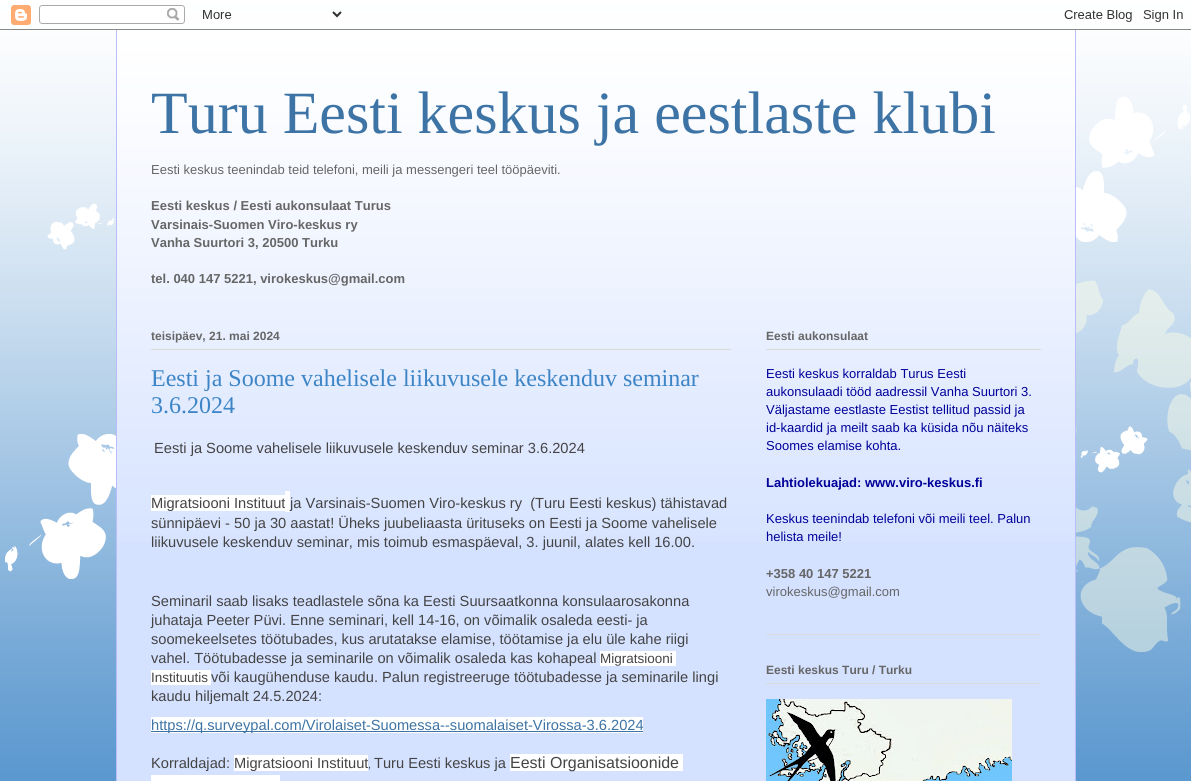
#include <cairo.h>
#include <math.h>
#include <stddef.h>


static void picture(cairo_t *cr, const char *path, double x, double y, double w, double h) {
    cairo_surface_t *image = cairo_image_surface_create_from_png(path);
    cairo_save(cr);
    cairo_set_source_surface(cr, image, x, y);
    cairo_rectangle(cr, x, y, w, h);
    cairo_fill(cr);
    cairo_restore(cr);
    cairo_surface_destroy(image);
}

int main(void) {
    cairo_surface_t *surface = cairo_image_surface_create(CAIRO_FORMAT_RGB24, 1191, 781);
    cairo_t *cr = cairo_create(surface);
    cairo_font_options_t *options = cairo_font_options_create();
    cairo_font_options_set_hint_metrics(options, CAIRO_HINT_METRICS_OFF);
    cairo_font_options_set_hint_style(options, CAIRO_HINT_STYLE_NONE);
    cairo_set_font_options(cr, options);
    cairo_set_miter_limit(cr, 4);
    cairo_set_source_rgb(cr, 0.239, 0.522, 0.776);
    cairo_paint(cr);
    picture(cr, "img1.png", 0, 0, 1191, 781);
    picture(cr, "img2.png", 0, 5, 1191, 25);
    cairo_set_source_rgb(cr, 0.831, 0.882, 1);
    cairo_rectangle(cr, 117, 37, 958, 744);
    cairo_fill(cr);
    picture(cr, "img3.png", 117, 30, 958, 512);
    cairo_set_source_rgb(cr, 0.733, 0.733, 1);
    cairo_rectangle(cr, 1075, 30, 1, 751);
    cairo_fill(cr);
    cairo_rectangle(cr, 116, 30, 1, 751);
    cairo_fill(cr);
    cairo_select_font_face(cr, "Liberation Serif", CAIRO_FONT_SLANT_NORMAL, CAIRO_FONT_WEIGHT_NORMAL);
    cairo_set_font_size(cr, 60);
    cairo_set_source_rgb(cr, 0.239, 0.455, 0.647);
    cairo_move_to(cr, 151, 133);
    cairo_show_text(cr, "Turu Eesti keskus ja eestlaste klubi");
    cairo_select_font_face(cr, "Liberation Sans", CAIRO_FONT_SLANT_NORMAL, CAIRO_FONT_WEIGHT_NORMAL);
    cairo_set_font_size(cr, 13);
    cairo_set_source_rgb(cr, 0.4, 0.4, 0.4);
    cairo_move_to(cr, 151, 174);
    cairo_show_text(cr, "Eesti keskus teenindab teid telefoni, meili ja messengeri teel tööpäeviti.");
    cairo_select_font_face(cr, "Liberation Sans", CAIRO_FONT_SLANT_NORMAL, CAIRO_FONT_WEIGHT_BOLD);
    cairo_move_to(cr, 151, 210);
    cairo_show_text(cr, "Eesti keskus / Eesti aukonsulaat Turus");
    cairo_move_to(cr, 151, 229);
    cairo_show_text(cr, "Varsinais-Suomen Viro-keskus ry");
    cairo_move_to(cr, 151, 247);
    cairo_show_text(cr, "Vanha Suurtori 3, 20500 Turku");
    cairo_move_to(cr, 151, 283);
    cairo_show_text(cr, "tel. 040 147 5221, virokeskus@gmail.com");
    cairo_set_source_rgb(cr, 0.859, 0.859, 0.859);
    cairo_rectangle(cr, 151, 349, 580, 1);
    cairo_fill(cr);
    cairo_set_font_size(cr, 12);
    cairo_set_source_rgb(cr, 0.4, 0.4, 0.4);
    cairo_move_to(cr, 151, 340);
    cairo_show_text(cr, "teisipäev, 21. mai 2024");
    cairo_select_font_face(cr, "Liberation Serif", CAIRO_FONT_SLANT_NORMAL, CAIRO_FONT_WEIGHT_NORMAL);
    cairo_set_font_size(cr, 24);
    cairo_set_source_rgb(cr, 0.239, 0.522, 0.776);
    cairo_move_to(cr, 151, 386);
    cairo_show_text(cr, "Eesti ja Soome vahelisele liikuvusele keskenduv seminar");
    cairo_move_to(cr, 151, 413);
    cairo_show_text(cr, "3.6.2024");
    cairo_select_font_face(cr, "Liberation Sans", CAIRO_FONT_SLANT_NORMAL, CAIRO_FONT_WEIGHT_NORMAL);
    cairo_set_font_size(cr, 14.65);
    cairo_set_source_rgb(cr, 0.267, 0.267, 0.267);
    cairo_move_to(cr, 154, 453);
    cairo_show_text(cr, "Eesti ja Soome vahelisele liikuvusele keskenduv seminar 3.6.2024");
    cairo_set_source_rgb(cr, 1, 1, 1);
    cairo_rectangle(cr, 151, 495, 134, 16);
    cairo_fill(cr);
    cairo_set_source_rgb(cr, 0.267, 0.267, 0.267);
    cairo_move_to(cr, 151, 508);
    cairo_show_text(cr, "Migratsiooni Instituut");
    cairo_set_source_rgb(cr, 1, 1, 1);
    cairo_rectangle(cr, 285, 491, 5, 21);
    cairo_fill(cr);
    cairo_set_source_rgb(cr, 0.267, 0.267, 0.267);
    cairo_move_to(cr, 290, 508);
    cairo_show_text(cr, "ja Varsinais-Suomen Viro-keskus ry  (Turu Eesti keskus) tähistavad");
    cairo_move_to(cr, 151, 528);
    cairo_show_text(cr, "sünnipäevi - 50 ja 30 aastat! Üheks juubeliaasta ürituseks on Eesti ja Soome vahelisele");
    cairo_move_to(cr, 151, 547);
    cairo_show_text(cr, "liikuvusele keskenduv seminar, mis toimub esmaspäeval, 3. juunil, alates kell 16.00.");
    cairo_move_to(cr, 151, 606);
    cairo_show_text(cr, "Seminaril saab lisaks teadlastele sõna ka Eesti Suursaatkonna konsulaarosakonna");
    cairo_move_to(cr, 151, 625);
    cairo_show_text(cr, "juhataja Peeter Püvi. Enne seminari, kell 14-16, on võimalik osaleda eesti- ja");
    cairo_move_to(cr, 151, 644);
    cairo_show_text(cr, "soomekeelsetes töötubades, kus arutatakse elamise, töötamise ja elu üle kahe riigi");
    cairo_move_to(cr, 151, 663);
    cairo_show_text(cr, "vahel. Töötubadesse ja seminarile on võimalik osaleda kas kohapeal");
    cairo_set_source_rgb(cr, 1, 1, 1);
    cairo_rectangle(cr, 600, 651, 76, 15);
    cairo_fill(cr);
    cairo_set_font_size(cr, 13.5);
    cairo_set_source_rgb(cr, 0.267, 0.267, 0.267);
    cairo_move_to(cr, 600, 663);
    cairo_show_text(cr, "Migratsiooni");
    cairo_set_source_rgb(cr, 1, 1, 1);
    cairo_rectangle(cr, 151, 670, 60, 15);
    cairo_fill(cr);
    cairo_set_source_rgb(cr, 0.267, 0.267, 0.267);
    cairo_move_to(cr, 151, 682);
    cairo_show_text(cr, "Instituutis");
    cairo_set_font_size(cr, 14.65);
    cairo_move_to(cr, 211, 682);
    cairo_show_text(cr, "või kaugühenduse kaudu. Palun registreeruge töötubadesse ja seminarile lingi");
    cairo_move_to(cr, 151, 701);
    cairo_show_text(cr, "kaudu hiljemalt 24.5.2024:");
    cairo_set_source_rgb(cr, 1, 1, 1);
    cairo_rectangle(cr, 151, 717, 492, 16);
    cairo_fill(cr);
    cairo_set_source_rgb(cr, 0.239, 0.455, 0.647);
    cairo_rectangle(cr, 151, 731, 492, 1);
    cairo_fill(cr);
    cairo_move_to(cr, 151, 730);
    cairo_show_text(cr, "https://q.surveypal.com/Virolaiset-Suomessa--suomalaiset-Virossa-3.6.2024");
    cairo_set_source_rgb(cr, 0.267, 0.267, 0.267);
    cairo_move_to(cr, 151, 768);
    cairo_show_text(cr, "Korraldajad:");
    cairo_set_source_rgb(cr, 1, 1, 1);
    cairo_rectangle(cr, 234, 755, 134, 16);
    cairo_fill(cr);
    cairo_set_source_rgb(cr, 0.267, 0.267, 0.267);
    cairo_move_to(cr, 234, 768);
    cairo_show_text(cr, "Migratsiooni Instituut");
    cairo_set_font_size(cr, 11);
    cairo_move_to(cr, 368, 768);
    cairo_show_text(cr, ",");
    cairo_set_font_size(cr, 14.65);
    cairo_move_to(cr, 374, 768);
    cairo_show_text(cr, "Turu Eesti keskus ja");
    cairo_set_source_rgb(cr, 1, 1, 1);
    cairo_rectangle(cr, 510, 754, 173, 17);
    cairo_fill(cr);
    cairo_set_font_size(cr, 16);
    cairo_set_source_rgb(cr, 0.267, 0.267, 0.267);
    cairo_move_to(cr, 510, 768);
    cairo_show_text(cr, "Eesti Organisatsioonide");
    cairo_set_source_rgb(cr, 1, 1, 1);
    cairo_rectangle(cr, 151, 775, 129, 6);
    cairo_fill(cr);
    cairo_set_source_rgb(cr, 0.859, 0.859, 0.859);
    cairo_rectangle(cr, 766, 634, 275, 1);
    cairo_fill(cr);
    cairo_rectangle(cr, 766, 349, 275, 1);
    cairo_fill(cr);
    cairo_select_font_face(cr, "Liberation Sans", CAIRO_FONT_SLANT_NORMAL, CAIRO_FONT_WEIGHT_BOLD);
    cairo_set_font_size(cr, 12);
    cairo_set_source_rgb(cr, 0.4, 0.4, 0.4);
    cairo_move_to(cr, 766, 340);
    cairo_show_text(cr, "Eesti aukonsulaat");
    cairo_select_font_face(cr, "Liberation Sans", CAIRO_FONT_SLANT_NORMAL, CAIRO_FONT_WEIGHT_NORMAL);
    cairo_set_font_size(cr, 13);
    cairo_set_source_rgb(cr, 0, 0, 0.6);
    cairo_move_to(cr, 766, 378);
    cairo_show_text(cr, "Eesti keskus korraldab Turus Eesti");
    cairo_move_to(cr, 766, 396);
    cairo_show_text(cr, "aukonsulaadi tööd aadressil Vanha Suurtori 3.");
    cairo_move_to(cr, 766, 414);
    cairo_show_text(cr, "Väljastame eestlaste Eestist tellitud passid ja");
    cairo_move_to(cr, 766, 432);
    cairo_show_text(cr, "id-kaardid ja meilt saab ka küsida nõu näiteks");
    cairo_move_to(cr, 766, 450);
    cairo_show_text(cr, "Soomes elamise kohta.");
    cairo_select_font_face(cr, "Liberation Sans", CAIRO_FONT_SLANT_NORMAL, CAIRO_FONT_WEIGHT_BOLD);
    cairo_move_to(cr, 766, 487);
    cairo_show_text(cr, "Lahtiolekuajad: www.viro-keskus.fi");
    cairo_select_font_face(cr, "Liberation Sans", CAIRO_FONT_SLANT_NORMAL, CAIRO_FONT_WEIGHT_NORMAL);
    cairo_move_to(cr, 766, 523);
    cairo_show_text(cr, "Keskus teenindab telefoni või meili teel. Palun");
    cairo_move_to(cr, 766, 541);
    cairo_show_text(cr, "helista meile!");
    cairo_select_font_face(cr, "Liberation Sans", CAIRO_FONT_SLANT_NORMAL, CAIRO_FONT_WEIGHT_BOLD);
    cairo_set_source_rgb(cr, 0.4, 0.4, 0.4);
    cairo_move_to(cr, 766, 578);
    cairo_show_text(cr, "+358 40 147 5221");
    cairo_select_font_face(cr, "Liberation Sans", CAIRO_FONT_SLANT_NORMAL, CAIRO_FONT_WEIGHT_NORMAL);
    cairo_move_to(cr, 766, 596);
    cairo_show_text(cr, "virokeskus@gmail.com");
    cairo_set_source_rgb(cr, 0.859, 0.859, 0.859);
    cairo_rectangle(cr, 766, 683, 275, 1);
    cairo_fill(cr);
    cairo_select_font_face(cr, "Liberation Sans", CAIRO_FONT_SLANT_NORMAL, CAIRO_FONT_WEIGHT_BOLD);
    cairo_set_font_size(cr, 12);
    cairo_set_source_rgb(cr, 0.4, 0.4, 0.4);
    cairo_move_to(cr, 766, 674);
    cairo_show_text(cr, "Eesti keskus Turu / Turku");
    picture(cr, "img4.png", 766, 699, 246, 82);
    cairo_surface_write_to_png(surface, "page.png");
    cairo_font_options_destroy(options);
    cairo_destroy(cr);
    cairo_surface_destroy(surface);
    return 0;
}
